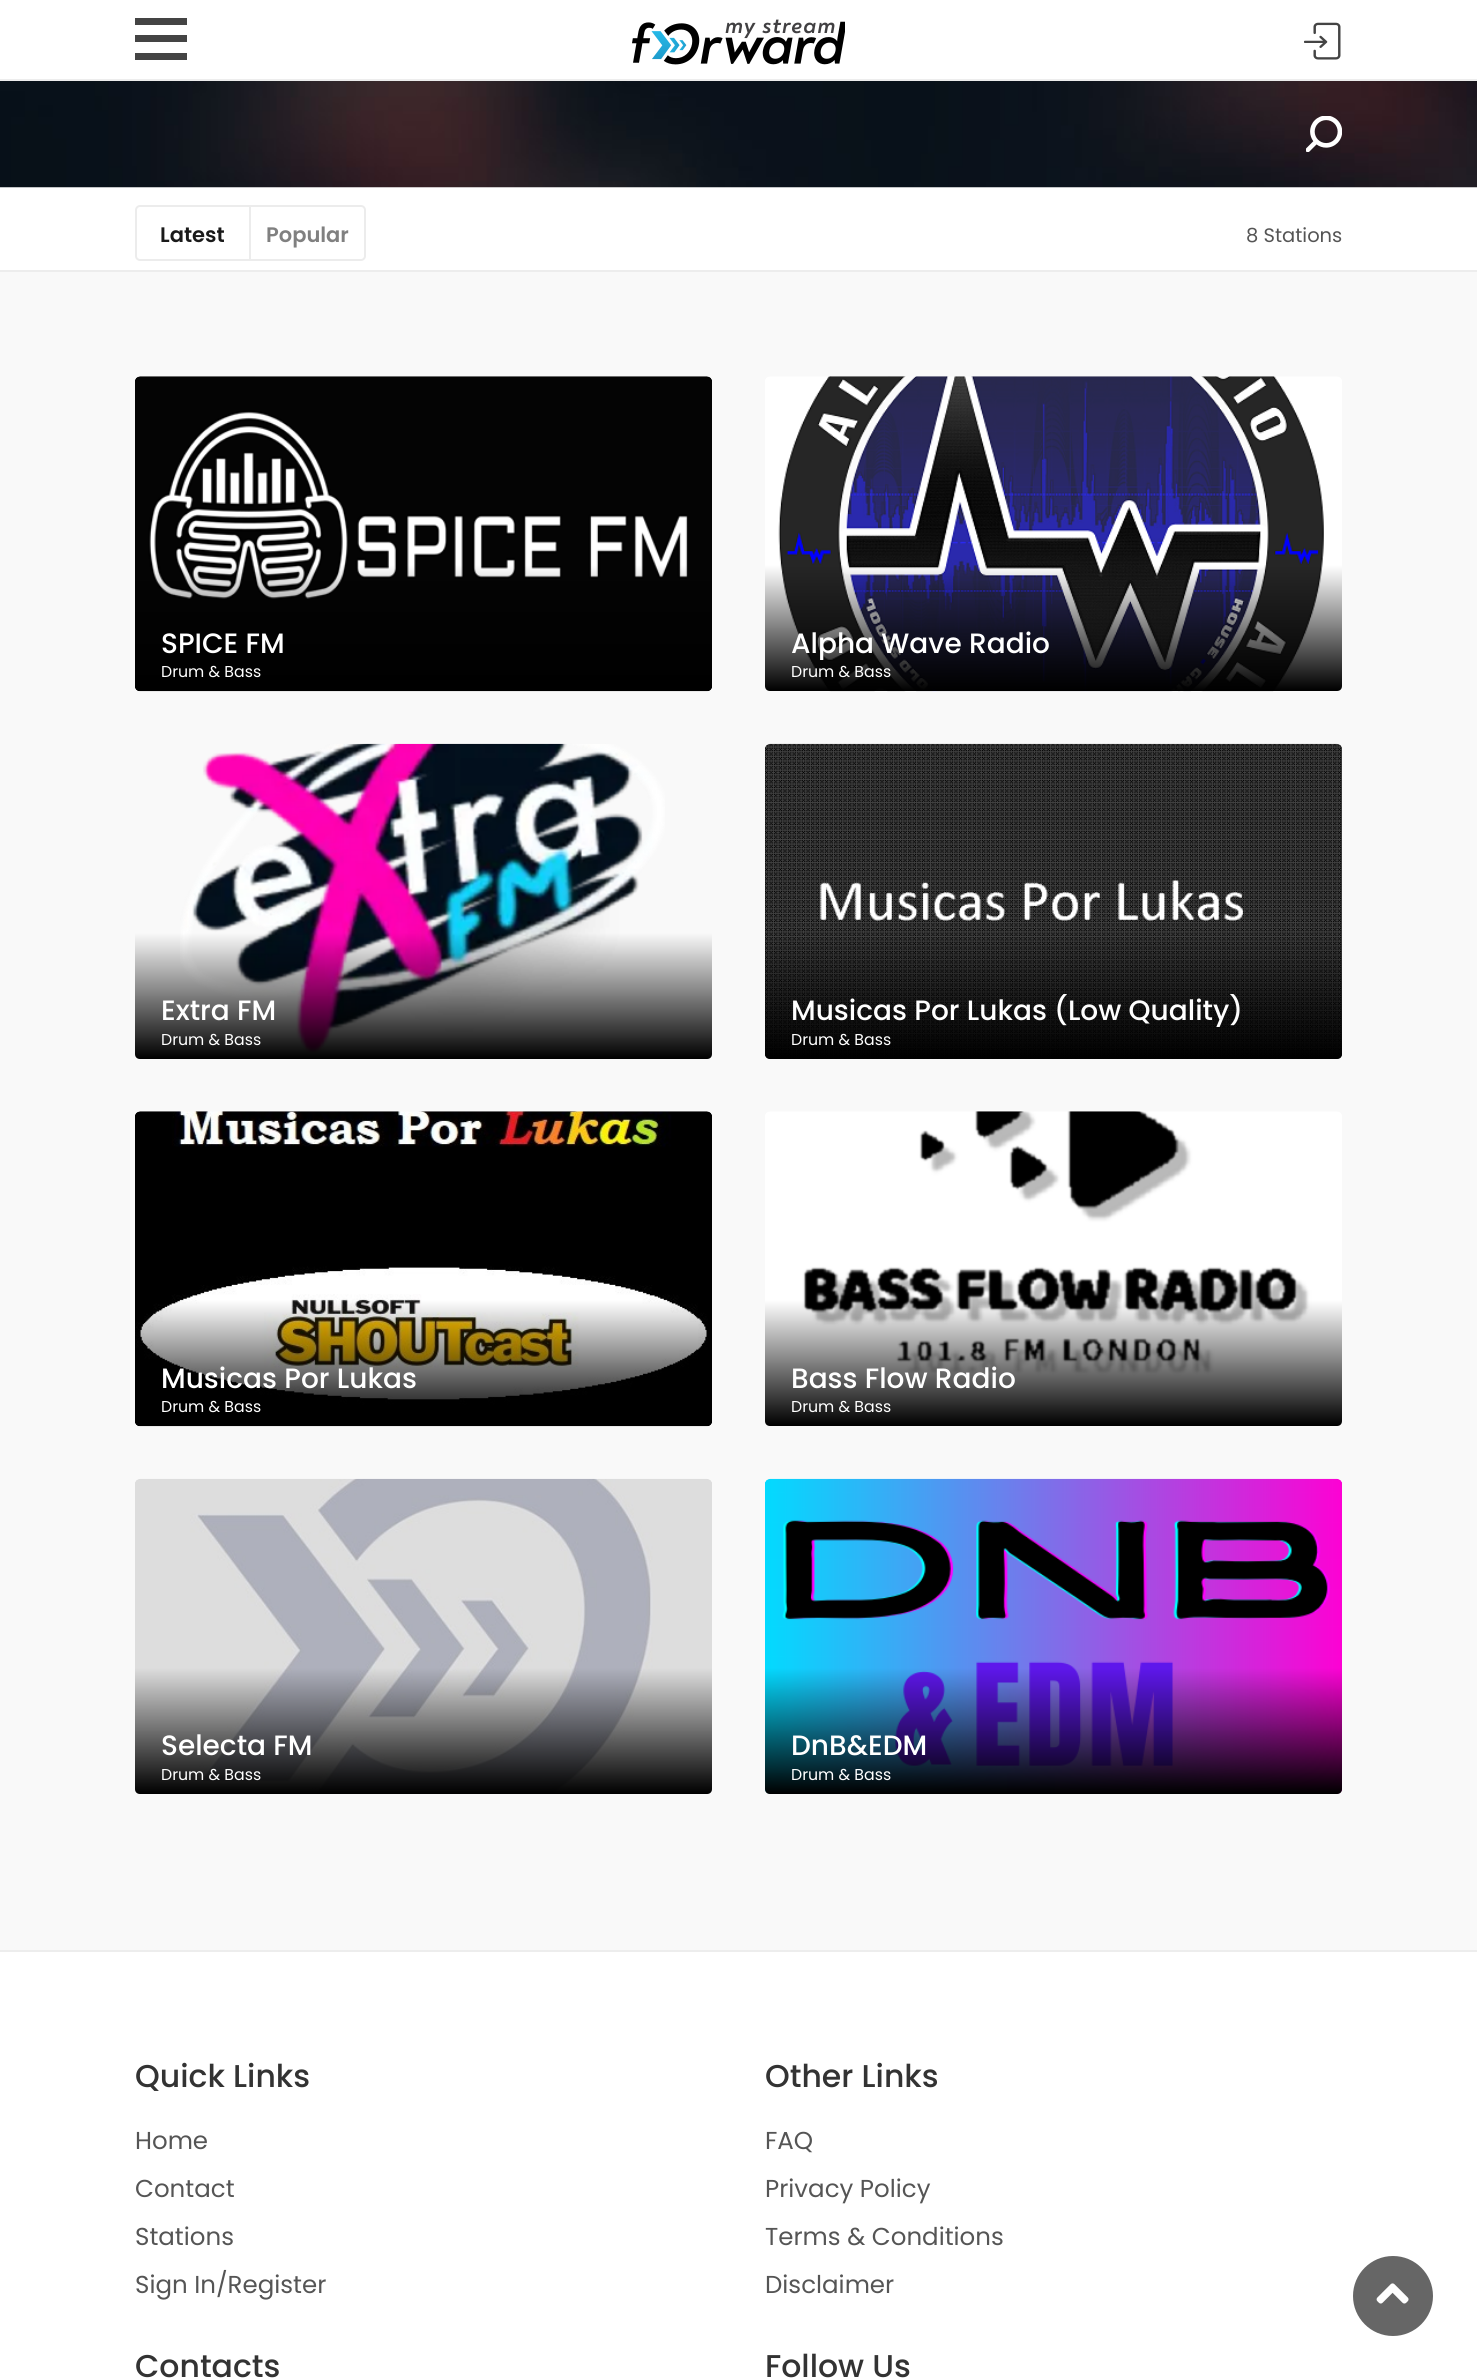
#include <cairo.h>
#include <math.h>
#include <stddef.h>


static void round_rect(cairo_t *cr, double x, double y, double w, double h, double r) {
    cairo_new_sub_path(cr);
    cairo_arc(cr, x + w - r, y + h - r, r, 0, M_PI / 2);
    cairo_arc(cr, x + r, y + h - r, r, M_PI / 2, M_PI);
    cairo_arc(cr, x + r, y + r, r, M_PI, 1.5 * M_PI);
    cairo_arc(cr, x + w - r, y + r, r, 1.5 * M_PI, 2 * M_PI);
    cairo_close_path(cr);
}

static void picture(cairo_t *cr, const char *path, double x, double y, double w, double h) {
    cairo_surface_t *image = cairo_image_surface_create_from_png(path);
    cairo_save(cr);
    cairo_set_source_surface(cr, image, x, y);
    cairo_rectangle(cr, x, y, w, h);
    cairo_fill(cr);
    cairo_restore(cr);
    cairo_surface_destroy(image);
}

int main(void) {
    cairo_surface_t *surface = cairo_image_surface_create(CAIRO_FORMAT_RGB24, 1477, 2379);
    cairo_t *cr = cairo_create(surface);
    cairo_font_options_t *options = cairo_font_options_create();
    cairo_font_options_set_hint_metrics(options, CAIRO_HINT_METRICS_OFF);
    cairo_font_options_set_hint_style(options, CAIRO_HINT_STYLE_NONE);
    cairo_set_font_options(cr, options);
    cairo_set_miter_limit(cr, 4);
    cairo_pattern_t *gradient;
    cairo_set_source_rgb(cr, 0.973, 0.973, 0.973);
    cairo_paint(cr);
    cairo_set_source_rgb(cr, 1, 1, 1);
    cairo_rectangle(cr, 0, 0, 1477, 79);
    cairo_fill(cr);
    cairo_set_source_rgb(cr, 0.929, 0.929, 0.929);
    cairo_rectangle(cr, 0, 79, 1477, 2);
    cairo_fill(cr);
    cairo_set_source_rgb(cr, 0.267, 0.267, 0.267);
    cairo_rectangle(cr, 135, 35, 52, 7);
    cairo_fill(cr);
    cairo_rectangle(cr, 135, 18, 52, 7);
    cairo_fill(cr);
    cairo_rectangle(cr, 135, 53, 52, 7);
    cairo_fill(cr);
    picture(cr, "img1.png", 1304, 22, 37, 38);
    picture(cr, "img2.png", 632, 19, 213, 46);
    cairo_set_source_rgb(cr, 1, 1, 1);
    cairo_rectangle(cr, 0, 187, 1477, 83);
    cairo_fill(cr);
    picture(cr, "img3.png", 0, 81, 1477, 107);
    picture(cr, "img4.png", 1306, 116, 36, 36);
    cairo_set_source_rgb(cr, 0.929, 0.929, 0.929);
    cairo_rectangle(cr, 0, 270, 1477, 2);
    cairo_fill(cr);
    round_rect(cr, 136, 206, 229, 54, 4);
    cairo_set_source_rgb(cr, 0.922, 0.922, 0.922);
    cairo_stroke(cr);
    cairo_rectangle(cr, 249, 207, 2, 52);
    cairo_fill(cr);
    cairo_select_font_face(cr, "Poppins SemiBold", CAIRO_FONT_SLANT_NORMAL, CAIRO_FONT_WEIGHT_NORMAL);
    cairo_set_font_size(cr, 21);
    cairo_set_source_rgb(cr, 0.102, 0.102, 0.102);
    cairo_move_to(cr, 160, 242);
    cairo_show_text(cr, "Latest");
    cairo_set_source_rgb(cr, 0.502, 0.502, 0.502);
    cairo_move_to(cr, 266, 242);
    cairo_show_text(cr, "Popular");
    cairo_select_font_face(cr, "Poppins", CAIRO_FONT_SLANT_NORMAL, CAIRO_FONT_WEIGHT_NORMAL);
    cairo_set_font_size(cr, 19.5);
    cairo_set_source_rgb(cr, 0.333, 0.333, 0.333);
    cairo_move_to(cr, 1246, 242);
    cairo_show_text(cr, "8 Stations");
    picture(cr, "img5.png", 135, 376, 577, 316);
    gradient = cairo_pattern_create_linear(424, 565, 424, 691);
    cairo_pattern_add_color_stop_rgba(gradient, 0, 0, 0, 0, 0);
    cairo_pattern_add_color_stop_rgba(gradient, 1, 0, 0, 0, 1);
    cairo_set_source(cr, gradient);
    cairo_pattern_destroy(gradient);
    cairo_new_path(cr);
    cairo_move_to(cr, 135, 565);
    cairo_line_to(cr, 712, 565);
    cairo_line_to(cr, 712, 686);
    cairo_curve_to(cr, 712, 689, 710, 691, 707, 691);
    cairo_line_to(cr, 140, 691);
    cairo_curve_to(cr, 137, 691, 135, 689, 135, 686);
    cairo_close_path(cr);
    cairo_fill(cr);
    cairo_select_font_face(cr, "Poppins Medium", CAIRO_FONT_SLANT_NORMAL, CAIRO_FONT_WEIGHT_NORMAL);
    cairo_set_font_size(cr, 28);
    cairo_set_source_rgb(cr, 1, 1, 1);
    cairo_move_to(cr, 161, 653);
    cairo_show_text(cr, "SPICE FM");
    cairo_select_font_face(cr, "Poppins", CAIRO_FONT_SLANT_NORMAL, CAIRO_FONT_WEIGHT_NORMAL);
    cairo_set_font_size(cr, 15.75);
    cairo_move_to(cr, 161, 677);
    cairo_show_text(cr, "Drum & Bass");
    picture(cr, "img6.png", 765, 376, 577, 316);
    gradient = cairo_pattern_create_linear(1054, 565, 1054, 691);
    cairo_pattern_add_color_stop_rgba(gradient, 0, 0, 0, 0, 0);
    cairo_pattern_add_color_stop_rgba(gradient, 1, 0, 0, 0, 1);
    cairo_set_source(cr, gradient);
    cairo_pattern_destroy(gradient);
    cairo_new_path(cr);
    cairo_move_to(cr, 765, 565);
    cairo_line_to(cr, 1342, 565);
    cairo_line_to(cr, 1342, 686);
    cairo_curve_to(cr, 1342, 689, 1340, 691, 1337, 691);
    cairo_line_to(cr, 770, 691);
    cairo_curve_to(cr, 767, 691, 765, 689, 765, 686);
    cairo_close_path(cr);
    cairo_fill(cr);
    cairo_save(cr);
    cairo_rectangle(cr, 791, 627, 525, 33);
    cairo_clip(cr);
    cairo_select_font_face(cr, "Poppins Medium", CAIRO_FONT_SLANT_NORMAL, CAIRO_FONT_WEIGHT_NORMAL);
    cairo_set_font_size(cr, 28);
    cairo_set_source_rgb(cr, 1, 1, 1);
    cairo_move_to(cr, 791, 653);
    cairo_show_text(cr, "Alpha Wave Radio");
    cairo_restore(cr);
    cairo_set_source_rgb(cr, 1, 1, 1);
    cairo_move_to(cr, 791, 677);
    cairo_show_text(cr, "Drum & Bass");
    picture(cr, "img7.png", 180, 743, 485, 312);
    gradient = cairo_pattern_create_linear(424, 933, 424, 1059);
    cairo_pattern_add_color_stop_rgba(gradient, 0, 0, 0, 0, 0);
    cairo_pattern_add_color_stop_rgba(gradient, 1, 0, 0, 0, 1);
    cairo_set_source(cr, gradient);
    cairo_pattern_destroy(gradient);
    cairo_new_path(cr);
    cairo_move_to(cr, 135, 933);
    cairo_line_to(cr, 712, 933);
    cairo_line_to(cr, 712, 1054);
    cairo_curve_to(cr, 712, 1057, 710, 1059, 707, 1059);
    cairo_line_to(cr, 140, 1059);
    cairo_curve_to(cr, 137, 1059, 135, 1057, 135, 1054);
    cairo_close_path(cr);
    cairo_fill(cr);
    cairo_select_font_face(cr, "Poppins Medium", CAIRO_FONT_SLANT_NORMAL, CAIRO_FONT_WEIGHT_NORMAL);
    cairo_set_font_size(cr, 28);
    cairo_set_source_rgb(cr, 1, 1, 1);
    cairo_move_to(cr, 161, 1020);
    cairo_show_text(cr, "Extra FM");
    cairo_select_font_face(cr, "Poppins", CAIRO_FONT_SLANT_NORMAL, CAIRO_FONT_WEIGHT_NORMAL);
    cairo_set_font_size(cr, 15.75);
    cairo_move_to(cr, 161, 1045);
    cairo_show_text(cr, "Drum & Bass");
    picture(cr, "img8.png", 765, 743, 577, 316);
    gradient = cairo_pattern_create_linear(1054, 933, 1054, 1059);
    cairo_pattern_add_color_stop_rgba(gradient, 0, 0, 0, 0, 0);
    cairo_pattern_add_color_stop_rgba(gradient, 1, 0, 0, 0, 1);
    cairo_set_source(cr, gradient);
    cairo_pattern_destroy(gradient);
    cairo_new_path(cr);
    cairo_move_to(cr, 765, 933);
    cairo_line_to(cr, 1342, 933);
    cairo_line_to(cr, 1342, 1054);
    cairo_curve_to(cr, 1342, 1057, 1340, 1059, 1337, 1059);
    cairo_line_to(cr, 770, 1059);
    cairo_curve_to(cr, 767, 1059, 765, 1057, 765, 1054);
    cairo_close_path(cr);
    cairo_fill(cr);
    cairo_save(cr);
    cairo_rectangle(cr, 791, 994, 525, 33);
    cairo_clip(cr);
    cairo_select_font_face(cr, "Poppins Medium", CAIRO_FONT_SLANT_NORMAL, CAIRO_FONT_WEIGHT_NORMAL);
    cairo_set_font_size(cr, 28);
    cairo_set_source_rgb(cr, 1, 1, 1);
    cairo_move_to(cr, 791, 1020);
    cairo_show_text(cr, "Musicas Por Lukas (Low Quality)");
    cairo_restore(cr);
    cairo_set_source_rgb(cr, 1, 1, 1);
    cairo_move_to(cr, 791, 1045);
    cairo_show_text(cr, "Drum & Bass");
    picture(cr, "img9.png", 135, 1111, 577, 316);
    gradient = cairo_pattern_create_linear(424, 1300, 424, 1426);
    cairo_pattern_add_color_stop_rgba(gradient, 0, 0, 0, 0, 0);
    cairo_pattern_add_color_stop_rgba(gradient, 1, 0, 0, 0, 1);
    cairo_set_source(cr, gradient);
    cairo_pattern_destroy(gradient);
    cairo_new_path(cr);
    cairo_move_to(cr, 135, 1300);
    cairo_line_to(cr, 712, 1300);
    cairo_line_to(cr, 712, 1421);
    cairo_curve_to(cr, 712, 1424, 710, 1426, 707, 1426);
    cairo_line_to(cr, 140, 1426);
    cairo_curve_to(cr, 137, 1426, 135, 1424, 135, 1421);
    cairo_close_path(cr);
    cairo_fill(cr);
    cairo_select_font_face(cr, "Poppins Medium", CAIRO_FONT_SLANT_NORMAL, CAIRO_FONT_WEIGHT_NORMAL);
    cairo_set_font_size(cr, 28);
    cairo_set_source_rgb(cr, 1, 1, 1);
    cairo_move_to(cr, 161, 1388);
    cairo_show_text(cr, "Musicas Por Lukas");
    cairo_select_font_face(cr, "Poppins", CAIRO_FONT_SLANT_NORMAL, CAIRO_FONT_WEIGHT_NORMAL);
    cairo_set_font_size(cr, 15.75);
    cairo_move_to(cr, 161, 1412);
    cairo_show_text(cr, "Drum & Bass");
    picture(cr, "img10.png", 765, 1111, 577, 315);
    gradient = cairo_pattern_create_linear(1054, 1300, 1054, 1426);
    cairo_pattern_add_color_stop_rgba(gradient, 0, 0, 0, 0, 0);
    cairo_pattern_add_color_stop_rgba(gradient, 1, 0, 0, 0, 1);
    cairo_set_source(cr, gradient);
    cairo_pattern_destroy(gradient);
    cairo_new_path(cr);
    cairo_move_to(cr, 765, 1300);
    cairo_line_to(cr, 1342, 1300);
    cairo_line_to(cr, 1342, 1421);
    cairo_curve_to(cr, 1342, 1424, 1340, 1426, 1337, 1426);
    cairo_line_to(cr, 770, 1426);
    cairo_curve_to(cr, 767, 1426, 765, 1424, 765, 1421);
    cairo_close_path(cr);
    cairo_fill(cr);
    cairo_select_font_face(cr, "Poppins Medium", CAIRO_FONT_SLANT_NORMAL, CAIRO_FONT_WEIGHT_NORMAL);
    cairo_set_font_size(cr, 28);
    cairo_set_source_rgb(cr, 1, 1, 1);
    cairo_move_to(cr, 791, 1388);
    cairo_show_text(cr, "Bass Flow Radio");
    cairo_select_font_face(cr, "Poppins", CAIRO_FONT_SLANT_NORMAL, CAIRO_FONT_WEIGHT_NORMAL);
    cairo_set_font_size(cr, 15.75);
    cairo_move_to(cr, 791, 1412);
    cairo_show_text(cr, "Drum & Bass");
    picture(cr, "img11.png", 135, 1478, 577, 316);
    gradient = cairo_pattern_create_linear(424, 1668, 424, 1794);
    cairo_pattern_add_color_stop_rgba(gradient, 0, 0, 0, 0, 0);
    cairo_pattern_add_color_stop_rgba(gradient, 1, 0, 0, 0, 1);
    cairo_set_source(cr, gradient);
    cairo_pattern_destroy(gradient);
    cairo_new_path(cr);
    cairo_move_to(cr, 135, 1668);
    cairo_line_to(cr, 712, 1668);
    cairo_line_to(cr, 712, 1789);
    cairo_curve_to(cr, 712, 1792, 710, 1794, 707, 1794);
    cairo_line_to(cr, 140, 1794);
    cairo_curve_to(cr, 137, 1794, 135, 1792, 135, 1789);
    cairo_close_path(cr);
    cairo_fill(cr);
    cairo_select_font_face(cr, "Poppins Medium", CAIRO_FONT_SLANT_NORMAL, CAIRO_FONT_WEIGHT_NORMAL);
    cairo_set_font_size(cr, 28);
    cairo_set_source_rgb(cr, 1, 1, 1);
    cairo_move_to(cr, 161, 1755);
    cairo_show_text(cr, "Selecta FM");
    cairo_select_font_face(cr, "Poppins", CAIRO_FONT_SLANT_NORMAL, CAIRO_FONT_WEIGHT_NORMAL);
    cairo_set_font_size(cr, 15.75);
    cairo_move_to(cr, 161, 1780);
    cairo_show_text(cr, "Drum & Bass");
    picture(cr, "img12.png", 765, 1478, 577, 316);
    gradient = cairo_pattern_create_linear(1054, 1668, 1054, 1794);
    cairo_pattern_add_color_stop_rgba(gradient, 0, 0, 0, 0, 0);
    cairo_pattern_add_color_stop_rgba(gradient, 1, 0, 0, 0, 1);
    cairo_set_source(cr, gradient);
    cairo_pattern_destroy(gradient);
    cairo_new_path(cr);
    cairo_move_to(cr, 765, 1668);
    cairo_line_to(cr, 1342, 1668);
    cairo_line_to(cr, 1342, 1789);
    cairo_curve_to(cr, 1342, 1792, 1340, 1794, 1337, 1794);
    cairo_line_to(cr, 770, 1794);
    cairo_curve_to(cr, 767, 1794, 765, 1792, 765, 1789);
    cairo_close_path(cr);
    cairo_fill(cr);
    cairo_select_font_face(cr, "Poppins Medium", CAIRO_FONT_SLANT_NORMAL, CAIRO_FONT_WEIGHT_NORMAL);
    cairo_set_font_size(cr, 28);
    cairo_set_source_rgb(cr, 1, 1, 1);
    cairo_move_to(cr, 791, 1755);
    cairo_show_text(cr, "DnB&EDM");
    cairo_select_font_face(cr, "Poppins", CAIRO_FONT_SLANT_NORMAL, CAIRO_FONT_WEIGHT_NORMAL);
    cairo_set_font_size(cr, 15.75);
    cairo_move_to(cr, 791, 1780);
    cairo_show_text(cr, "Drum & Bass");
    cairo_rectangle(cr, 0, 1952, 1477, 427);
    cairo_fill(cr);
    cairo_set_source_rgb(cr, 0.929, 0.929, 0.929);
    cairo_rectangle(cr, 0, 1950, 1477, 2);
    cairo_fill(cr);
    cairo_select_font_face(cr, "Poppins Medium", CAIRO_FONT_SLANT_NORMAL, CAIRO_FONT_WEIGHT_NORMAL);
    cairo_set_font_size(cr, 31.5);
    cairo_set_source_rgb(cr, 0.2, 0.2, 0.2);
    cairo_move_to(cr, 135, 2087);
    cairo_show_text(cr, "Quick Links");
    cairo_select_font_face(cr, "Poppins", CAIRO_FONT_SLANT_NORMAL, CAIRO_FONT_WEIGHT_NORMAL);
    cairo_set_font_size(cr, 24.5);
    cairo_set_source_rgb(cr, 0.333, 0.333, 0.333);
    cairo_move_to(cr, 135, 2149);
    cairo_show_text(cr, "Home");
    cairo_move_to(cr, 135, 2197);
    cairo_show_text(cr, "Contact");
    cairo_move_to(cr, 135, 2245);
    cairo_show_text(cr, "Stations");
    cairo_move_to(cr, 135, 2293);
    cairo_show_text(cr, "Sign In/Register");
    cairo_select_font_face(cr, "Poppins Medium", CAIRO_FONT_SLANT_NORMAL, CAIRO_FONT_WEIGHT_NORMAL);
    cairo_set_font_size(cr, 31.5);
    cairo_set_source_rgb(cr, 0.2, 0.2, 0.2);
    cairo_move_to(cr, 765, 2087);
    cairo_show_text(cr, "Other Links");
    cairo_select_font_face(cr, "Poppins", CAIRO_FONT_SLANT_NORMAL, CAIRO_FONT_WEIGHT_NORMAL);
    cairo_set_font_size(cr, 24.5);
    cairo_set_source_rgb(cr, 0.333, 0.333, 0.333);
    cairo_move_to(cr, 765, 2149);
    cairo_show_text(cr, "FAQ");
    cairo_move_to(cr, 765, 2197);
    cairo_show_text(cr, "Privacy Policy");
    cairo_move_to(cr, 765, 2245);
    cairo_show_text(cr, "Terms & Conditions");
    cairo_move_to(cr, 765, 2293);
    cairo_show_text(cr, "Disclaimer");
    cairo_select_font_face(cr, "Poppins Medium", CAIRO_FONT_SLANT_NORMAL, CAIRO_FONT_WEIGHT_NORMAL);
    cairo_set_font_size(cr, 31.5);
    cairo_set_source_rgb(cr, 0.2, 0.2, 0.2);
    cairo_move_to(cr, 135, 2377);
    cairo_show_text(cr, "Contacts");
    cairo_move_to(cr, 765, 2377);
    cairo_show_text(cr, "Follow Us");
    cairo_set_source_rgb(cr, 0.4, 0.4, 0.4);
    cairo_new_path(cr);
    cairo_arc(cr, 1393, 2296, 40, 0, 2 * M_PI);
    cairo_fill(cr);
    picture(cr, "img13.png", 1376, 2283, 33, 21);
    cairo_surface_write_to_png(surface, "page.png");
    cairo_font_options_destroy(options);
    cairo_destroy(cr);
    cairo_surface_destroy(surface);
    return 0;
}
